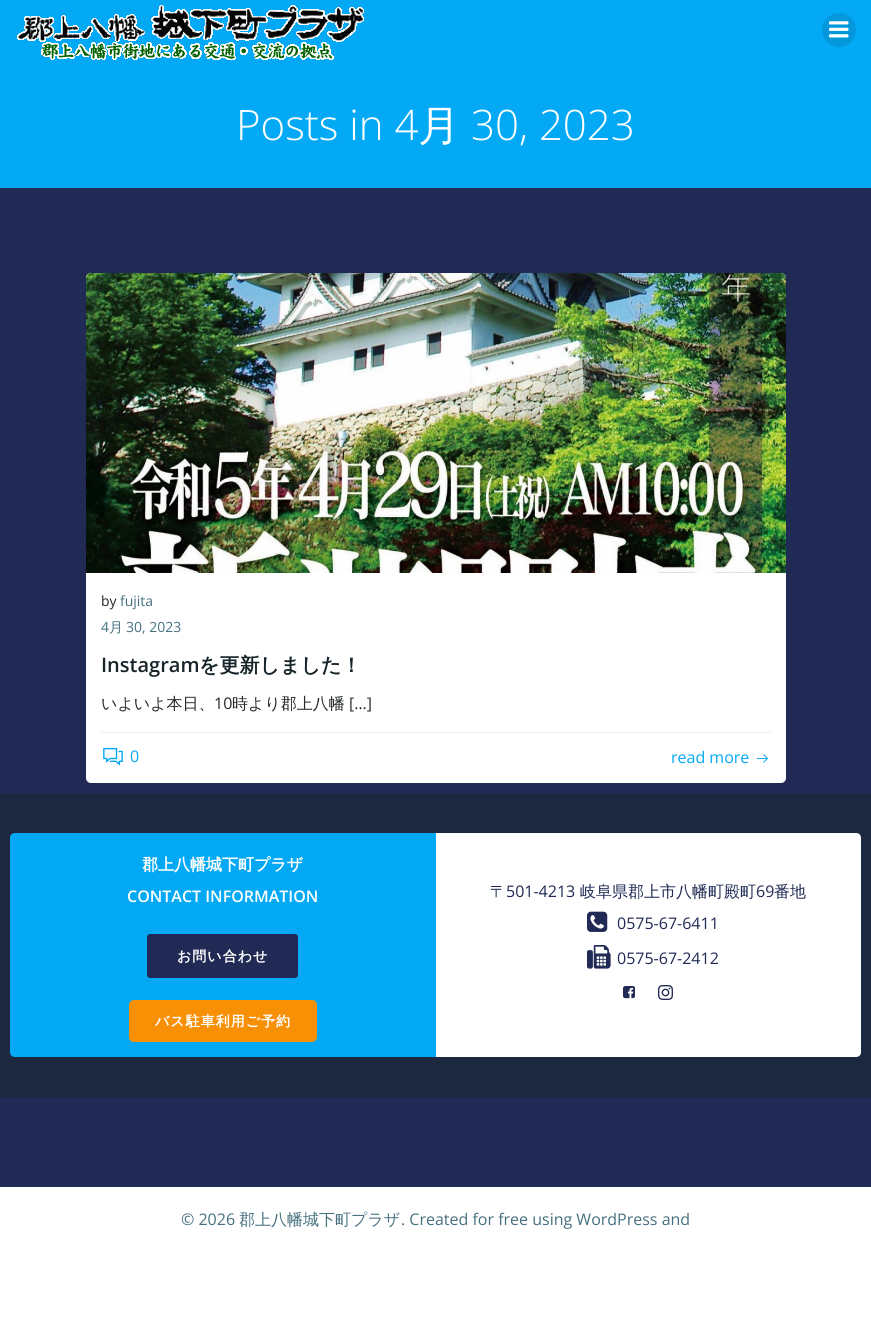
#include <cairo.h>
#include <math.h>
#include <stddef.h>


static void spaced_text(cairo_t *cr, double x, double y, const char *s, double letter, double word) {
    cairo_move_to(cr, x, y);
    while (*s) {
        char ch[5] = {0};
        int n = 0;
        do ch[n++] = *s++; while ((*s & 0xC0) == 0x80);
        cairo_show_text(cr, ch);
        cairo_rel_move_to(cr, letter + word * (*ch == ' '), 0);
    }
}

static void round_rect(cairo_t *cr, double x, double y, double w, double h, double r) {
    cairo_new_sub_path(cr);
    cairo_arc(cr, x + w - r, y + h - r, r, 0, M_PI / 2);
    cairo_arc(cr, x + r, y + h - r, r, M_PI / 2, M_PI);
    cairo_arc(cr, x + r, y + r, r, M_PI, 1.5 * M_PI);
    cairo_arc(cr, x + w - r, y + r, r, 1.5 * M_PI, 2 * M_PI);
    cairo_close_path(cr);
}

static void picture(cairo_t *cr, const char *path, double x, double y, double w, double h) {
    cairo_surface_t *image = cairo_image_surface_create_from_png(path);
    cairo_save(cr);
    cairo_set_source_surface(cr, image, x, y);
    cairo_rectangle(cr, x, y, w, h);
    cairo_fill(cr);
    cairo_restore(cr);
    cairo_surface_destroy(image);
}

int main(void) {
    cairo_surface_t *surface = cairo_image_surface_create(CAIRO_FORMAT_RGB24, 871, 1338);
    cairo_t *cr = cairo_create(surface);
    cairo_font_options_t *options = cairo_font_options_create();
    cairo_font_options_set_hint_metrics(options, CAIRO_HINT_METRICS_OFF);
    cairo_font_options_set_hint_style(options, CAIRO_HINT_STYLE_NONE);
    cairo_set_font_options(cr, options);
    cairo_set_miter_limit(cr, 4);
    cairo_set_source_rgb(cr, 1, 1, 1);
    cairo_paint(cr);
    cairo_set_source_rgb(cr, 0.012, 0.663, 0.957);
    cairo_rectangle(cr, 0, 0, 871, 188);
    cairo_fill(cr);
    picture(cr, "img1.png", 17, 5, 347, 55);
    cairo_set_source_rgb(cr, 0.012, 0.596, 0.863);
    cairo_arc(cr, 839, 30, 17, 0, 2 * M_PI);
    cairo_fill(cr);
    picture(cr, "img2.png", 829, 21, 20, 17);
    cairo_select_font_face(cr, "Open Sans Light", CAIRO_FONT_SLANT_NORMAL, CAIRO_FONT_WEIGHT_NORMAL);
    cairo_set_font_size(cr, 42);
    cairo_set_source_rgb(cr, 1, 1, 1);
    cairo_move_to(cr, 236, 140);
    cairo_show_text(cr, "Posts in 4");
    cairo_select_font_face(cr, "WenQuanYi Zen Hei Medium", CAIRO_FONT_SLANT_NORMAL, CAIRO_FONT_WEIGHT_NORMAL);
    cairo_move_to(cr, 418, 140);
    cairo_show_text(cr, "月");
    cairo_select_font_face(cr, "Open Sans Light", CAIRO_FONT_SLANT_NORMAL, CAIRO_FONT_WEIGHT_NORMAL);
    cairo_move_to(cr, 471, 140);
    cairo_show_text(cr, "30, 2023");
    cairo_set_source_rgb(cr, 0.125, 0.165, 0.329);
    cairo_rectangle(cr, 0, 188, 871, 999);
    cairo_fill(cr);
    cairo_set_source_rgb(cr, 1, 1, 1);
    round_rect(cr, 86, 273, 700, 510, 5);
    cairo_fill(cr);
    picture(cr, "img3.png", 86, 273, 700, 300);
    cairo_set_source_rgb(cr, 0.933, 0.933, 0.933);
    cairo_rectangle(cr, 101, 732, 670, 1);
    cairo_fill(cr);
    cairo_select_font_face(cr, "Open Sans", CAIRO_FONT_SLANT_NORMAL, CAIRO_FONT_WEIGHT_NORMAL);
    cairo_set_font_size(cr, 14);
    cairo_set_source_rgb(cr, 0.145, 0.161, 0.165);
    cairo_move_to(cr, 101, 606);
    cairo_show_text(cr, "by");
    cairo_set_source_rgb(cr, 0.275, 0.439, 0.498);
    cairo_move_to(cr, 120, 606);
    cairo_show_text(cr, "fujita");
    cairo_move_to(cr, 101, 632);
    cairo_show_text(cr, "4");
    cairo_select_font_face(cr, "WenQuanYi Zen Hei Medium", CAIRO_FONT_SLANT_NORMAL, CAIRO_FONT_WEIGHT_NORMAL);
    cairo_move_to(cr, 109, 632);
    cairo_show_text(cr, "月");
    cairo_select_font_face(cr, "Open Sans", CAIRO_FONT_SLANT_NORMAL, CAIRO_FONT_WEIGHT_NORMAL);
    cairo_move_to(cr, 126, 632);
    cairo_show_text(cr, "30, 2023");
    cairo_select_font_face(cr, "Open Sans SemiBold", CAIRO_FONT_SLANT_NORMAL, CAIRO_FONT_WEIGHT_NORMAL);
    cairo_set_font_size(cr, 20);
    cairo_set_source_rgb(cr, 0.09, 0.145, 0.165);
    cairo_move_to(cr, 101, 672);
    cairo_show_text(cr, "Instagram");
    cairo_select_font_face(cr, "WenQuanYi Zen Hei", CAIRO_FONT_SLANT_NORMAL, CAIRO_FONT_WEIGHT_BOLD);
    cairo_move_to(cr, 199, 672);
    cairo_show_text(cr, "を更新しました！");
    cairo_select_font_face(cr, "WenQuanYi Zen Hei Medium", CAIRO_FONT_SLANT_NORMAL, CAIRO_FONT_WEIGHT_NORMAL);
    cairo_set_font_size(cr, 16);
    cairo_set_source_rgb(cr, 0.145, 0.161, 0.165);
    cairo_move_to(cr, 101, 709);
    cairo_show_text(cr, "いよいよ本日、");
    cairo_select_font_face(cr, "Open Sans", CAIRO_FONT_SLANT_NORMAL, CAIRO_FONT_WEIGHT_NORMAL);
    cairo_move_to(cr, 214, 709);
    cairo_show_text(cr, "10");
    cairo_select_font_face(cr, "WenQuanYi Zen Hei Medium", CAIRO_FONT_SLANT_NORMAL, CAIRO_FONT_WEIGHT_NORMAL);
    cairo_move_to(cr, 232, 709);
    cairo_show_text(cr, "時より郡上八幡");
    cairo_select_font_face(cr, "Open Sans", CAIRO_FONT_SLANT_NORMAL, CAIRO_FONT_WEIGHT_NORMAL);
    cairo_move_to(cr, 349, 709);
    cairo_show_text(cr, "[…]");
    picture(cr, "img4.png", 103, 747, 20, 19);
    cairo_set_source_rgb(cr, 0.012, 0.663, 0.957);
    cairo_move_to(cr, 130, 762);
    cairo_show_text(cr, "0");
    cairo_move_to(cr, 671, 763);
    cairo_show_text(cr, "read more");
    picture(cr, "img5.png", 756, 754, 12, 9);
    cairo_set_source_rgb(cr, 0.106, 0.157, 0.247);
    cairo_rectangle(cr, 0, 793, 871, 304);
    cairo_fill(cr);
    cairo_set_source_rgb(cr, 0.012, 0.663, 0.957);
    cairo_new_path(cr);
    cairo_move_to(cr, 15, 833);
    cairo_line_to(cr, 436, 833);
    cairo_line_to(cr, 436, 1057);
    cairo_line_to(cr, 15, 1057);
    cairo_curve_to(cr, 12, 1057, 10, 1055, 10, 1052);
    cairo_line_to(cr, 10, 838);
    cairo_curve_to(cr, 10, 835, 12, 833, 15, 833);
    cairo_close_path(cr);
    cairo_fill(cr);
    cairo_select_font_face(cr, "WenQuanYi Zen Hei", CAIRO_FONT_SLANT_NORMAL, CAIRO_FONT_WEIGHT_BOLD);
    cairo_set_source_rgb(cr, 1, 1, 1);
    cairo_move_to(cr, 142, 870);
    cairo_show_text(cr, "郡上八幡城下町プラザ");
    cairo_select_font_face(cr, "Open Sans SemiBold", CAIRO_FONT_SLANT_NORMAL, CAIRO_FONT_WEIGHT_NORMAL);
    cairo_move_to(cr, 127, 902);
    cairo_show_text(cr, "CONTACT INFORMATION");
    cairo_set_source_rgb(cr, 0.125, 0.165, 0.329);
    round_rect(cr, 146, 933, 153, 46, 4);
    cairo_fill_preserve(cr);
    cairo_set_source_rgb(cr, 0.012, 0.663, 0.957);
    cairo_stroke(cr);
    cairo_select_font_face(cr, "WenQuanYi Zen Hei", CAIRO_FONT_SLANT_NORMAL, CAIRO_FONT_WEIGHT_BOLD);
    cairo_set_font_size(cr, 14);
    cairo_set_source_rgb(cr, 1, 1, 1);
    spaced_text(cr, 177, 961, "お問い合わせ", 1, 0);
    cairo_set_source_rgb(cr, 0.969, 0.565, 0.027);
    round_rect(cr, 130, 1001, 186, 40, 4);
    cairo_fill_preserve(cr);
    cairo_stroke(cr);
    cairo_set_source_rgb(cr, 1, 1, 1);
    spaced_text(cr, 155, 1026, "バス駐車利用ご予約", 1, 0);
    cairo_new_path(cr);
    cairo_move_to(cr, 436, 833);
    cairo_line_to(cr, 856, 833);
    cairo_curve_to(cr, 859, 833, 861, 835, 861, 838);
    cairo_line_to(cr, 861, 1052);
    cairo_curve_to(cr, 861, 1055, 859, 1057, 856, 1057);
    cairo_line_to(cr, 436, 1057);
    cairo_close_path(cr);
    cairo_fill(cr);
    cairo_select_font_face(cr, "WenQuanYi Zen Hei Medium", CAIRO_FONT_SLANT_NORMAL, CAIRO_FONT_WEIGHT_NORMAL);
    cairo_set_font_size(cr, 16);
    cairo_set_source_rgb(cr, 0.125, 0.165, 0.329);
    cairo_move_to(cr, 490, 897);
    cairo_show_text(cr, "〒");
    cairo_select_font_face(cr, "Open Sans", CAIRO_FONT_SLANT_NORMAL, CAIRO_FONT_WEIGHT_NORMAL);
    cairo_move_to(cr, 506, 897);
    cairo_show_text(cr, "501-4213");
    cairo_select_font_face(cr, "WenQuanYi Zen Hei Medium", CAIRO_FONT_SLANT_NORMAL, CAIRO_FONT_WEIGHT_NORMAL);
    cairo_move_to(cr, 580, 897);
    cairo_show_text(cr, "岐阜県郡上市八幡町殿町");
    cairo_select_font_face(cr, "Open Sans", CAIRO_FONT_SLANT_NORMAL, CAIRO_FONT_WEIGHT_NORMAL);
    cairo_move_to(cr, 756, 897);
    cairo_show_text(cr, "69");
    cairo_select_font_face(cr, "WenQuanYi Zen Hei Medium", CAIRO_FONT_SLANT_NORMAL, CAIRO_FONT_WEIGHT_NORMAL);
    cairo_move_to(cr, 774, 897);
    cairo_show_text(cr, "番地");
    picture(cr, "img6.png", 587, 911, 21, 21);
    cairo_select_font_face(cr, "Open Sans", CAIRO_FONT_SLANT_NORMAL, CAIRO_FONT_WEIGHT_NORMAL);
    cairo_move_to(cr, 617, 929);
    cairo_show_text(cr, "0575-67-6411");
    picture(cr, "img7.png", 587, 945, 24, 24);
    cairo_move_to(cr, 617, 964);
    cairo_show_text(cr, "0575-67-2412");
    picture(cr, "img8.png", 623, 986, 12, 13);
    picture(cr, "img9.png", 658, 985, 15, 15);
    cairo_set_source_rgb(cr, 0.275, 0.439, 0.498);
    cairo_move_to(cr, 181, 1225);
    cairo_show_text(cr, "© 2026");
    cairo_select_font_face(cr, "WenQuanYi Zen Hei Medium", CAIRO_FONT_SLANT_NORMAL, CAIRO_FONT_WEIGHT_NORMAL);
    cairo_move_to(cr, 239, 1225);
    cairo_show_text(cr, "郡上八幡城下町プラザ");
    cairo_select_font_face(cr, "Open Sans", CAIRO_FONT_SLANT_NORMAL, CAIRO_FONT_WEIGHT_NORMAL);
    cairo_move_to(cr, 401, 1225);
    cairo_show_text(cr, ". Created for free using WordPress and");
    cairo_surface_write_to_png(surface, "page.png");
    cairo_font_options_destroy(options);
    cairo_destroy(cr);
    cairo_surface_destroy(surface);
    return 0;
}
